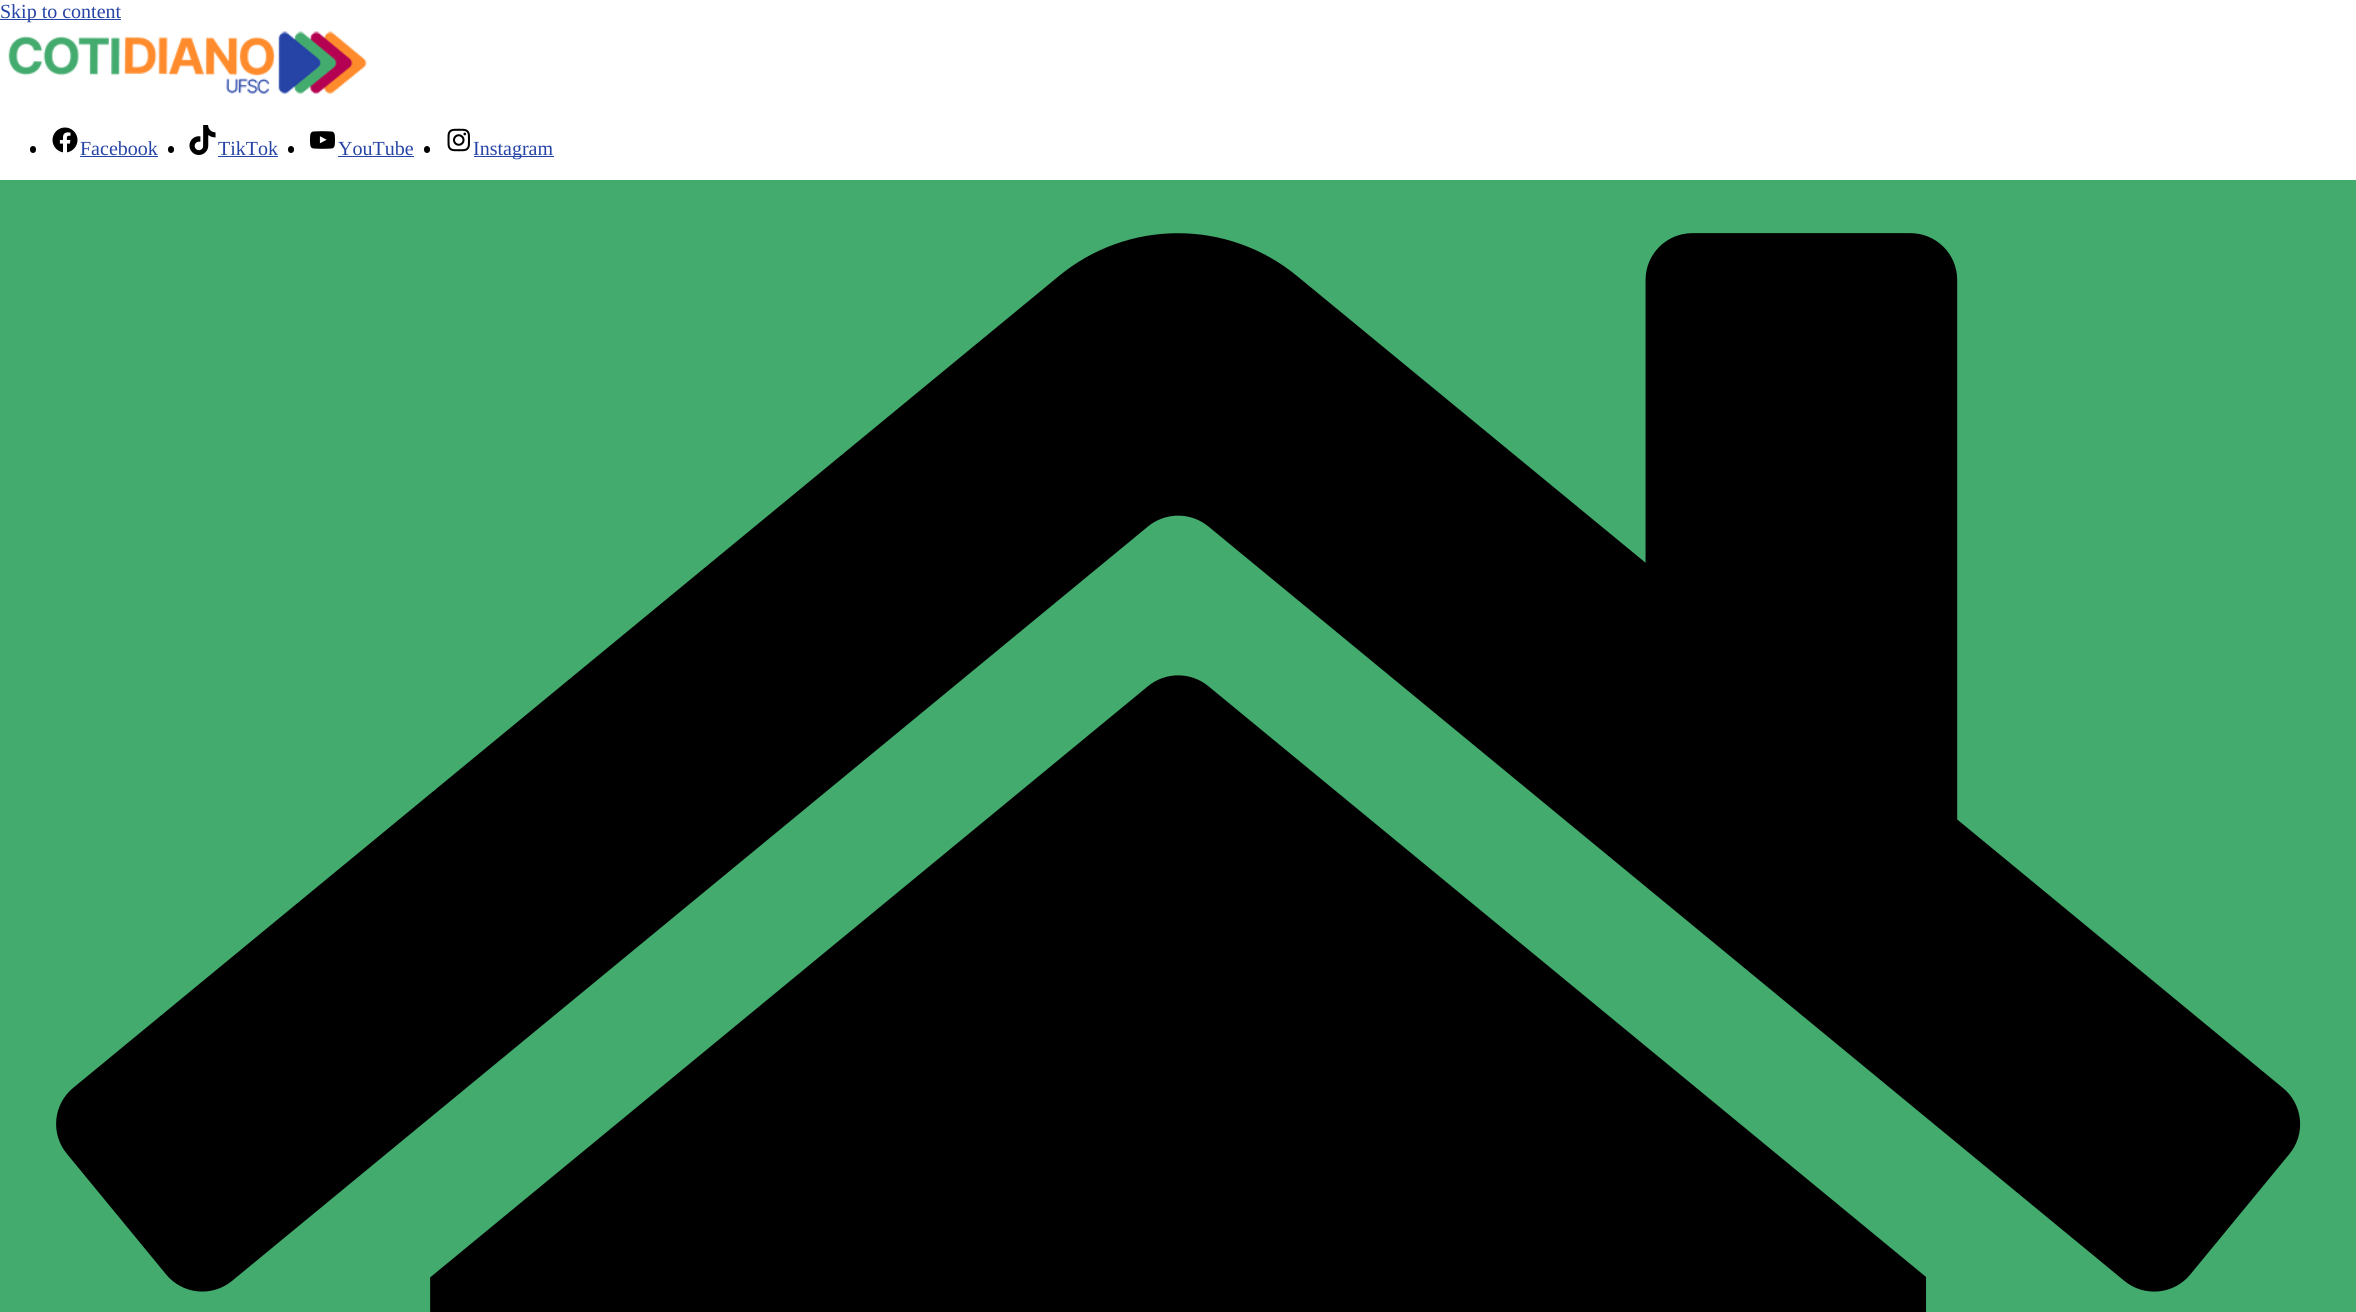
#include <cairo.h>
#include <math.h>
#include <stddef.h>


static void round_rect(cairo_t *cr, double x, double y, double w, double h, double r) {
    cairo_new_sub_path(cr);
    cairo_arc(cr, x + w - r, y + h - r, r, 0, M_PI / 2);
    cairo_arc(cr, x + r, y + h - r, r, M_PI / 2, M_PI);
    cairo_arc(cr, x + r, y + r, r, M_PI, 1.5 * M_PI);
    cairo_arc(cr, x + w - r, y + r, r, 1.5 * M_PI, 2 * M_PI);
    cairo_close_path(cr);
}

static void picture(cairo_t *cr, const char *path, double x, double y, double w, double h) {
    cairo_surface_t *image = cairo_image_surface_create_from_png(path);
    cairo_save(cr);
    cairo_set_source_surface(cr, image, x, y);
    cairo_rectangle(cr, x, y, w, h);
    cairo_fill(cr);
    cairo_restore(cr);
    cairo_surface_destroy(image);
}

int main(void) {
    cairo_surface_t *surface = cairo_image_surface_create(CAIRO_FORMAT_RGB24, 2356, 1312);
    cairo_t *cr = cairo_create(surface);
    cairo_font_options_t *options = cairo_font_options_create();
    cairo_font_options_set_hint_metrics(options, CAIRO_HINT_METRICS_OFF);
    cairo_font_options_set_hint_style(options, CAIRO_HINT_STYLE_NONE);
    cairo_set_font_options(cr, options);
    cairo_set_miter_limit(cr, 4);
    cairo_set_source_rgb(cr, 1, 1, 1);
    cairo_paint(cr);
    cairo_set_source_rgb(cr, 0.149, 0.267, 0.651);
    cairo_rectangle(cr, 0, 19, 121, 1);
    cairo_fill(cr);
    cairo_select_font_face(cr, "Liberation Serif", CAIRO_FONT_SLANT_NORMAL, CAIRO_FONT_WEIGHT_NORMAL);
    cairo_set_font_size(cr, 20);
    cairo_move_to(cr, 0, 18);
    cairo_show_text(cr, "Skip to content");
    picture(cr, "img1.png", 8, 31, 359, 63);
    cairo_set_source_rgb(cr, 0, 0, 0);
    round_rect(cr, 30, 146, 6, 7, 3);
    cairo_fill(cr);
    picture(cr, "img2.png", 52, 127, 26, 26);
    cairo_set_source_rgb(cr, 0.149, 0.267, 0.651);
    cairo_move_to(cr, 80, 155);
    cairo_show_text(cr, "Facebook");
    cairo_rectangle(cr, 80, 156, 78, 1);
    cairo_fill(cr);
    cairo_set_source_rgb(cr, 0, 0, 0);
    round_rect(cr, 168, 146, 6, 7, 3);
    cairo_fill(cr);
    picture(cr, "img3.png", 189, 125, 27, 30);
    cairo_set_source_rgb(cr, 0.149, 0.267, 0.651);
    cairo_move_to(cr, 218, 155);
    cairo_show_text(cr, "TikTok");
    cairo_rectangle(cr, 218, 156, 60, 1);
    cairo_fill(cr);
    cairo_set_source_rgb(cr, 0, 0, 0);
    round_rect(cr, 288, 146, 6, 7, 3);
    cairo_fill(cr);
    picture(cr, "img4.png", 310, 131, 25, 18);
    cairo_set_source_rgb(cr, 0.149, 0.267, 0.651);
    cairo_move_to(cr, 338, 155);
    cairo_show_text(cr, "YouTube");
    cairo_rectangle(cr, 338, 156, 76, 1);
    cairo_fill(cr);
    cairo_set_source_rgb(cr, 0, 0, 0);
    round_rect(cr, 424, 146, 6, 7, 3);
    cairo_fill(cr);
    picture(cr, "img5.png", 447, 128, 23, 24);
    cairo_set_source_rgb(cr, 0.149, 0.267, 0.651);
    cairo_rectangle(cr, 474, 156, 80, 1);
    cairo_fill(cr);
    cairo_move_to(cr, 473, 155);
    cairo_show_text(cr, "Instagram");
    cairo_set_source_rgb(cr, 0.267, 0.671, 0.431);
    cairo_rectangle(cr, 0, 180, 2356, 1132);
    cairo_fill(cr);
    picture(cr, "img6.png", 56, 233, 2245, 1079);
    cairo_surface_write_to_png(surface, "page.png");
    cairo_font_options_destroy(options);
    cairo_destroy(cr);
    cairo_surface_destroy(surface);
    return 0;
}
